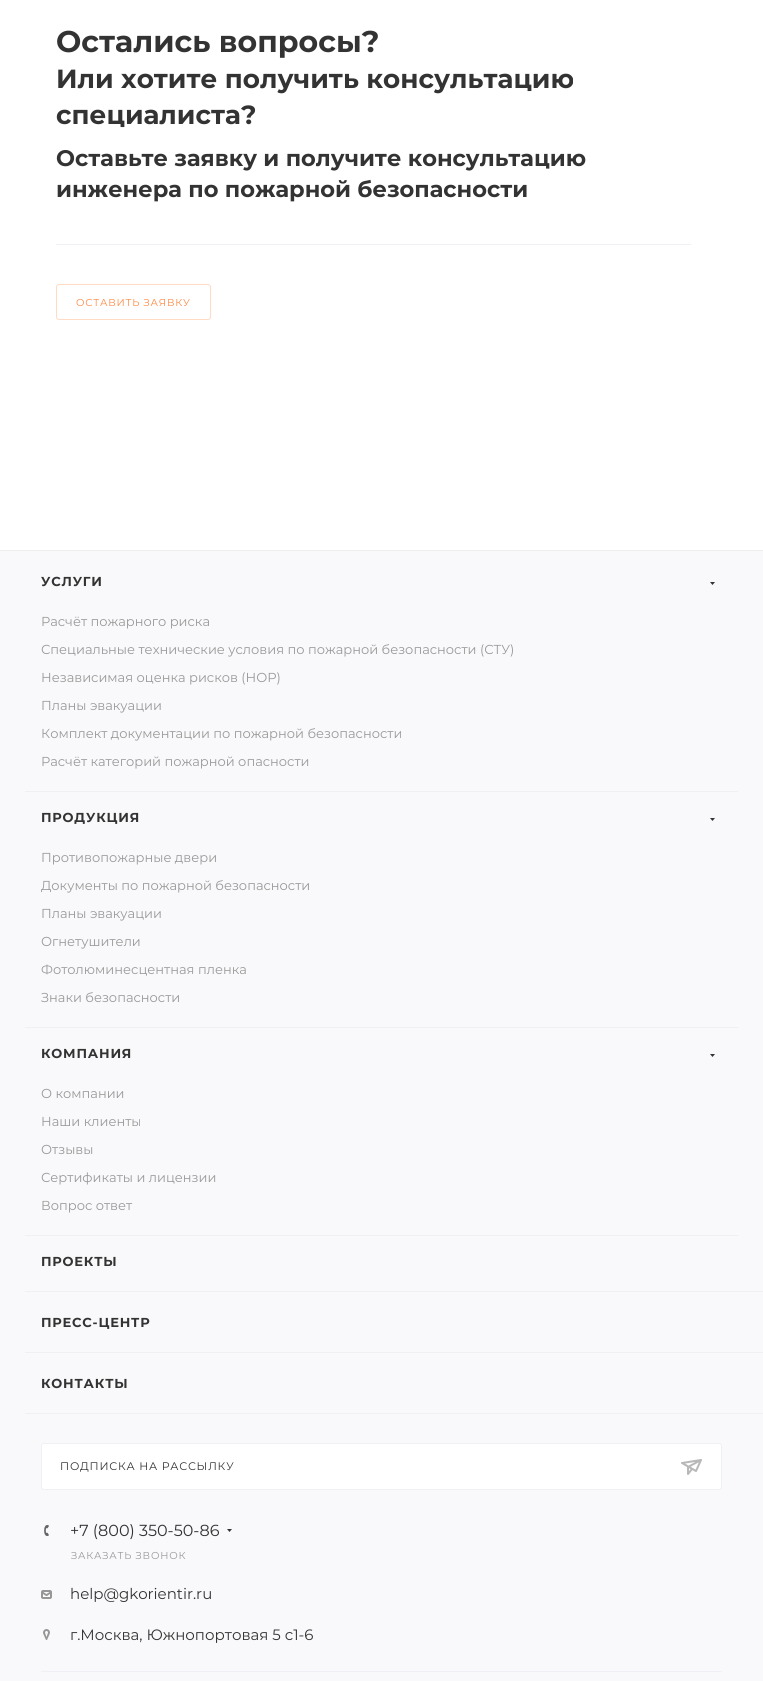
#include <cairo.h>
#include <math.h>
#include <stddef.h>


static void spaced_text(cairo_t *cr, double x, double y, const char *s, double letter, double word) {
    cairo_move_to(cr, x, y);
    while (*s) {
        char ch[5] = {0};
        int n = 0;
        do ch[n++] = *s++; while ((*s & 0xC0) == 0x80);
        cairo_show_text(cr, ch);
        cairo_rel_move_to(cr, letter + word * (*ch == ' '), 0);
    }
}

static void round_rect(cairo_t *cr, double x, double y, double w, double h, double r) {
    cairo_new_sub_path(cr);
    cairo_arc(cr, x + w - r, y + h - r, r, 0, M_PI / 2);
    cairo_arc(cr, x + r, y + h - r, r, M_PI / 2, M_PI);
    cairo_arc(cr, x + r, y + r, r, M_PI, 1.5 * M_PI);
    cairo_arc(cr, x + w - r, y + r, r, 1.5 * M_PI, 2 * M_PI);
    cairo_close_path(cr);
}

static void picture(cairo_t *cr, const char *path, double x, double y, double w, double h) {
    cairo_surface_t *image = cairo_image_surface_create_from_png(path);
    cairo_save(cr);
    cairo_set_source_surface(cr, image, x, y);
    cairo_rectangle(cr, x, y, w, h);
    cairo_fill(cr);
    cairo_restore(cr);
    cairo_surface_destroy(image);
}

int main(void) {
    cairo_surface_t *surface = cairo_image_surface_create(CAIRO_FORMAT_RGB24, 763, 1681);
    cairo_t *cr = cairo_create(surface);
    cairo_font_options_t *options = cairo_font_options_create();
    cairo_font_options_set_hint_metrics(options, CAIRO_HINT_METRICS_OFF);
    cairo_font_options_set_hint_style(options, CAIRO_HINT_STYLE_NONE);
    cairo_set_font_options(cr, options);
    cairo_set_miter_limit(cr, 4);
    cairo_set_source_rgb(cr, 1, 1, 1);
    cairo_paint(cr);
    cairo_set_source_rgb(cr, 0.937, 0.945, 0.961);
    cairo_rectangle(cr, 56, 244, 635, 1);
    cairo_fill(cr);
    cairo_select_font_face(cr, "Montserrat", CAIRO_FONT_SLANT_NORMAL, CAIRO_FONT_WEIGHT_BOLD);
    cairo_set_font_size(cr, 30);
    cairo_set_source_rgb(cr, 0.2, 0.2, 0.2);
    cairo_move_to(cr, 56, 52);
    cairo_show_text(cr, "Остались вопросы?");
    cairo_set_font_size(cr, 26.25);
    cairo_move_to(cr, 56, 88);
    cairo_show_text(cr, "Или хотите получить консультацию");
    cairo_move_to(cr, 56, 124);
    cairo_show_text(cr, "специалиста?");
    cairo_set_font_size(cr, 22.5);
    cairo_move_to(cr, 56, 166);
    cairo_show_text(cr, "Оставьте заявку и получите консультацию");
    cairo_move_to(cr, 56, 197);
    cairo_show_text(cr, "инженера по пожарной безопасности");
    round_rect(cr, 56.5, 284.5, 154, 35, 2.5);
    cairo_set_source_rgb(cr, 1, 0.859, 0.776);
    cairo_set_line_width(cr, 1);
    cairo_stroke(cr);
    cairo_select_font_face(cr, "Montserrat", CAIRO_FONT_SLANT_NORMAL, CAIRO_FONT_WEIGHT_NORMAL);
    cairo_set_font_size(cr, 10);
    cairo_set_source_rgb(cr, 1, 0.533, 0.259);
    spaced_text(cr, 76, 306, "ОСТАВИТЬ ЗАЯВКУ", 0.8, 0);
    cairo_set_source_rgb(cr, 0.973, 0.976, 0.984);
    cairo_rectangle(cr, 0, 551, 763, 1130);
    cairo_fill(cr);
    cairo_set_source_rgb(cr, 0.933, 0.933, 0.933);
    cairo_rectangle(cr, 0, 550, 763, 1);
    cairo_fill(cr);
    cairo_select_font_face(cr, "Montserrat", CAIRO_FONT_SLANT_NORMAL, CAIRO_FONT_WEIGHT_BOLD);
    cairo_set_font_size(cr, 13);
    cairo_set_source_rgb(cr, 0.2, 0.2, 0.2);
    spaced_text(cr, 41, 586, "УСЛУГИ", 0.8, 0);
    picture(cr, "img1.png", 710, 582, 5, 3);
    cairo_select_font_face(cr, "Montserrat", CAIRO_FONT_SLANT_NORMAL, CAIRO_FONT_WEIGHT_NORMAL);
    cairo_set_source_rgb(cr, 0.6, 0.6, 0.6);
    cairo_move_to(cr, 41, 626);
    cairo_show_text(cr, "Расчёт пожарного риска");
    cairo_move_to(cr, 41, 654);
    cairo_show_text(cr, "Специальные технические условия по пожарной безопасности (СТУ)");
    cairo_move_to(cr, 41, 682);
    cairo_show_text(cr, "Независимая оценка рисков (НОР)");
    cairo_move_to(cr, 41, 710);
    cairo_show_text(cr, "Планы эвакуации");
    cairo_move_to(cr, 41, 738);
    cairo_show_text(cr, "Комплект документации по пожарной безопасности");
    cairo_move_to(cr, 41, 766);
    cairo_show_text(cr, "Расчёт категорий пожарной опасности");
    cairo_set_source_rgb(cr, 0.933, 0.941, 0.957);
    cairo_rectangle(cr, 25, 791, 713, 1);
    cairo_fill(cr);
    cairo_select_font_face(cr, "Montserrat", CAIRO_FONT_SLANT_NORMAL, CAIRO_FONT_WEIGHT_BOLD);
    cairo_set_source_rgb(cr, 0.2, 0.2, 0.2);
    spaced_text(cr, 41, 822, "ПРОДУКЦИЯ", 0.8, 0);
    picture(cr, "img1.png", 710, 818, 5, 3);
    cairo_select_font_face(cr, "Montserrat", CAIRO_FONT_SLANT_NORMAL, CAIRO_FONT_WEIGHT_NORMAL);
    cairo_set_source_rgb(cr, 0.6, 0.6, 0.6);
    cairo_move_to(cr, 41, 862);
    cairo_show_text(cr, "Противопожарные двери");
    cairo_move_to(cr, 41, 890);
    cairo_show_text(cr, "Документы по пожарной безопасности");
    cairo_move_to(cr, 41, 918);
    cairo_show_text(cr, "Планы эвакуации");
    cairo_move_to(cr, 41, 946);
    cairo_show_text(cr, "Огнетушители");
    cairo_move_to(cr, 41, 974);
    cairo_show_text(cr, "Фотолюминесцентная пленка");
    cairo_move_to(cr, 41, 1002);
    cairo_show_text(cr, "Знаки безопасности");
    cairo_set_source_rgb(cr, 0.933, 0.941, 0.957);
    cairo_rectangle(cr, 25, 1027, 713, 1);
    cairo_fill(cr);
    cairo_select_font_face(cr, "Montserrat", CAIRO_FONT_SLANT_NORMAL, CAIRO_FONT_WEIGHT_BOLD);
    cairo_set_source_rgb(cr, 0.2, 0.2, 0.2);
    spaced_text(cr, 41, 1058, "КОМПАНИЯ", 0.8, 0);
    picture(cr, "img1.png", 710, 1054, 5, 3);
    cairo_select_font_face(cr, "Montserrat", CAIRO_FONT_SLANT_NORMAL, CAIRO_FONT_WEIGHT_NORMAL);
    cairo_set_source_rgb(cr, 0.6, 0.6, 0.6);
    cairo_move_to(cr, 41, 1098);
    cairo_show_text(cr, "О компании");
    cairo_move_to(cr, 41, 1126);
    cairo_show_text(cr, "Наши клиенты");
    cairo_move_to(cr, 41, 1154);
    cairo_show_text(cr, "Отзывы");
    cairo_move_to(cr, 41, 1182);
    cairo_show_text(cr, "Сертификаты и лицензии");
    cairo_move_to(cr, 41, 1210);
    cairo_show_text(cr, "Вопрос ответ");
    cairo_set_source_rgb(cr, 0.933, 0.941, 0.957);
    cairo_rectangle(cr, 25, 1235, 713, 1);
    cairo_fill(cr);
    cairo_select_font_face(cr, "Montserrat", CAIRO_FONT_SLANT_NORMAL, CAIRO_FONT_WEIGHT_BOLD);
    cairo_set_source_rgb(cr, 0.2, 0.2, 0.2);
    spaced_text(cr, 41, 1266, "ПРОЕКТЫ", 0.8, 0);
    cairo_set_source_rgb(cr, 0.933, 0.941, 0.957);
    cairo_rectangle(cr, 25, 1291, 738, 1);
    cairo_fill(cr);
    cairo_set_source_rgb(cr, 0.2, 0.2, 0.2);
    spaced_text(cr, 41, 1327, "ПРЕСС-ЦЕНТР", 0.8, 0);
    cairo_set_source_rgb(cr, 0.933, 0.941, 0.957);
    cairo_rectangle(cr, 25, 1352, 738, 1);
    cairo_fill(cr);
    cairo_set_source_rgb(cr, 0.2, 0.2, 0.2);
    spaced_text(cr, 41, 1388, "КОНТАКТЫ", 0.8, 0);
    cairo_set_source_rgb(cr, 0.933, 0.941, 0.957);
    cairo_rectangle(cr, 25, 1413, 738, 1);
    cairo_fill(cr);
    cairo_set_source_rgb(cr, 1, 1, 1);
    round_rect(cr, 41.5, 1443.5, 680, 46, 2.5);
    cairo_fill_preserve(cr);
    cairo_set_source_rgb(cr, 0.933, 0.941, 0.957);
    cairo_stroke(cr);
    cairo_select_font_face(cr, "Montserrat", CAIRO_FONT_SLANT_NORMAL, CAIRO_FONT_WEIGHT_NORMAL);
    cairo_set_font_size(cr, 11);
    cairo_set_source_rgb(cr, 0.2, 0.2, 0.2);
    spaced_text(cr, 60, 1470, "ПОДПИСКА НА РАССЫЛКУ", 0.8, 0);
    picture(cr, "img2.png", 681, 1459, 21, 16);
    picture(cr, "img3.png", 44, 1525, 5, 11);
    picture(cr, "img4.png", 44, 1525, 5, 11);
    cairo_set_font_size(cr, 16);
    cairo_move_to(cr, 70, 1536);
    cairo_show_text(cr, "+7 (800) 350-50-86");
    picture(cr, "img1.png", 227, 1529, 5, 3);
    cairo_set_font_size(cr, 10);
    cairo_set_source_rgb(cr, 0.6, 0.6, 0.6);
    spaced_text(cr, 71, 1559, "ЗАКАЗАТЬ ЗВОНОК", 0.8, 0);
    picture(cr, "img5.png", 41, 1590, 11, 9);
    cairo_set_font_size(cr, 15);
    cairo_set_source_rgb(cr, 0.2, 0.2, 0.2);
    cairo_move_to(cr, 70, 1599);
    cairo_show_text(cr, "help@gkorientir.ru");
    picture(cr, "img6.png", 43, 1629, 7, 11);
    cairo_move_to(cr, 70, 1640);
    cairo_show_text(cr, "г.Москва, Южнопортовая 5 с1-6");
    cairo_set_source_rgb(cr, 0.941, 0.945, 0.961);
    cairo_rectangle(cr, 41, 1671, 681, 1);
    cairo_fill(cr);
    cairo_surface_write_to_png(surface, "page.png");
    cairo_font_options_destroy(options);
    cairo_destroy(cr);
    cairo_surface_destroy(surface);
    return 0;
}
